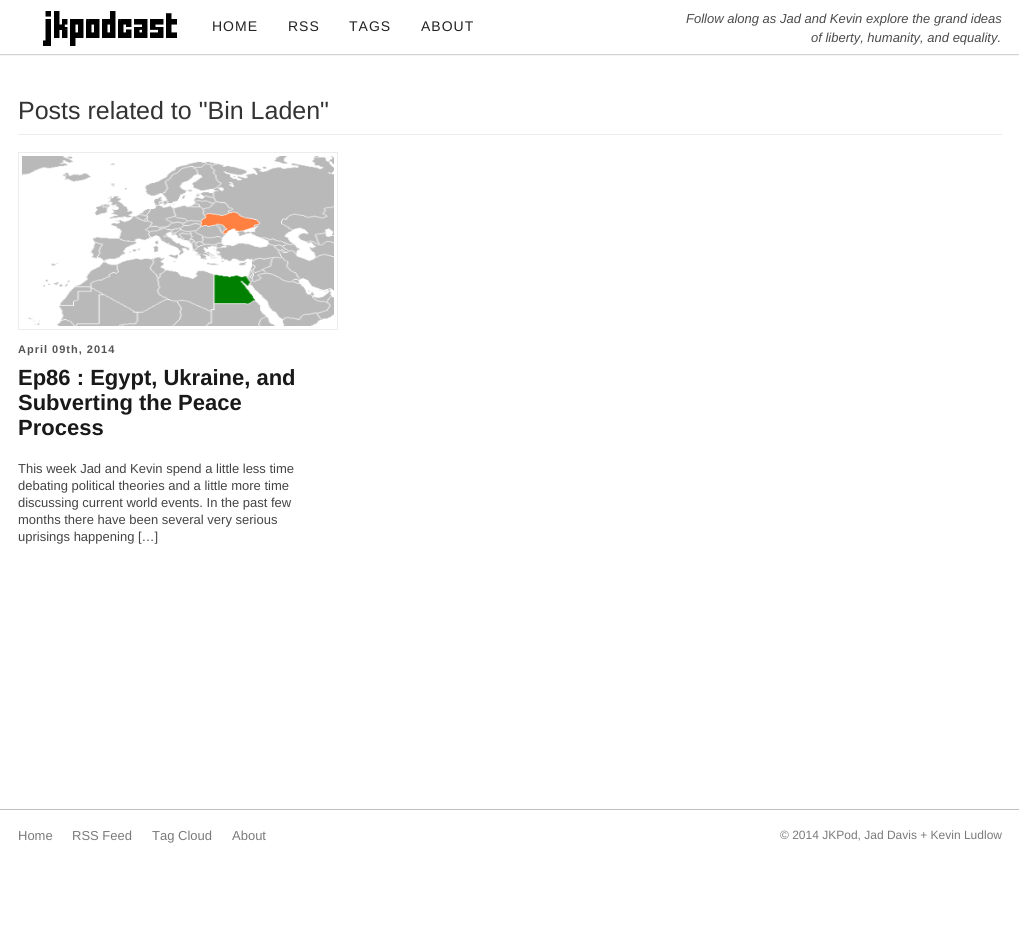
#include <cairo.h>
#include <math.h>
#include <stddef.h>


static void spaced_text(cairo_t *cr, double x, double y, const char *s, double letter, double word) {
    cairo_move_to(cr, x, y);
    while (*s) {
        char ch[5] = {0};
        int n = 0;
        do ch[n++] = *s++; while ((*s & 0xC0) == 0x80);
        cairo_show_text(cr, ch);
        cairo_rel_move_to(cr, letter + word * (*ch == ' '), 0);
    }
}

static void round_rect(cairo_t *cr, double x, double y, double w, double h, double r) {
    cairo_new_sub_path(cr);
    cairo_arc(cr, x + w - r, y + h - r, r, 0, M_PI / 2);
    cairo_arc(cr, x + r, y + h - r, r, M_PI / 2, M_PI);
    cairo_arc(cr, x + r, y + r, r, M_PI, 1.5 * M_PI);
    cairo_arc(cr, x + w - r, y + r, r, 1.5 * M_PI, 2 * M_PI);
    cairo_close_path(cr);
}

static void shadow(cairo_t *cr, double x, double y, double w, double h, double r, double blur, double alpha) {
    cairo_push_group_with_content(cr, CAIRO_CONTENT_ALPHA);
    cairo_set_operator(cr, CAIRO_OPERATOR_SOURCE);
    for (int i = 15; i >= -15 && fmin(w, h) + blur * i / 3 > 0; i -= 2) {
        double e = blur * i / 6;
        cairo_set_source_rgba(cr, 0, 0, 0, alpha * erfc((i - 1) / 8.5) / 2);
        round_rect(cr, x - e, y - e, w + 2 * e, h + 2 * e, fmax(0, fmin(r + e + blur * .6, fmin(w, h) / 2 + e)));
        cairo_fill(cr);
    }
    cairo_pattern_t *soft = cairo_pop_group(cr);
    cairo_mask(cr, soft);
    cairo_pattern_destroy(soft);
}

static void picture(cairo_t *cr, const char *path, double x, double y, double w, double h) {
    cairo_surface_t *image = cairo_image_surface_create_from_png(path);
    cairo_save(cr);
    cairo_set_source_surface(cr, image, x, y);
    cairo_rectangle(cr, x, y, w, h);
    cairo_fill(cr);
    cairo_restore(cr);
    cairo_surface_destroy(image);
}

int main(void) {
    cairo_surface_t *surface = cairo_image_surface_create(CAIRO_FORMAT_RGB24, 1019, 947);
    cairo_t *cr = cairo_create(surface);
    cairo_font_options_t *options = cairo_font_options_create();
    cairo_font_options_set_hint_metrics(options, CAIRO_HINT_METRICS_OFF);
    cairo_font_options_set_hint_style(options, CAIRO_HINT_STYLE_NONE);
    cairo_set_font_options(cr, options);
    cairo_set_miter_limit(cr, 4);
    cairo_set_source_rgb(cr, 1, 1, 1);
    cairo_paint(cr);
    cairo_save(cr);
    cairo_rectangle(cr, 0, 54, 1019, 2);
    cairo_clip(cr);
    cairo_set_source_rgb(cr, 0, 0, 0);
    shadow(cr, 0, 0, 1019, 54, 0, 1, 0.5);
    cairo_restore(cr);
    picture(cr, "img1.png", 43, 11, 134, 35);
    cairo_select_font_face(cr, "Liberation Sans", CAIRO_FONT_SLANT_NORMAL, CAIRO_FONT_WEIGHT_NORMAL);
    cairo_set_font_size(cr, 14);
    cairo_set_source_rgb(cr, 0.133, 0.133, 0.133);
    spaced_text(cr, 212, 31, "HOME", 1, 0);
    spaced_text(cr, 288, 31, "RSS", 1, 0);
    spaced_text(cr, 349, 31, "TAGS", 1, 0);
    spaced_text(cr, 421, 31, "ABOUT", 1, 0);
    cairo_select_font_face(cr, "Liberation Sans", CAIRO_FONT_SLANT_ITALIC, CAIRO_FONT_WEIGHT_NORMAL);
    cairo_set_font_size(cr, 13);
    cairo_set_source_rgb(cr, 0.294, 0.294, 0.294);
    cairo_move_to(cr, 686, 23);
    cairo_show_text(cr, "Follow along as Jad and Kevin explore the grand ideas");
    cairo_move_to(cr, 811, 42);
    cairo_show_text(cr, "of liberty, humanity, and equality.");
    cairo_set_source_rgb(cr, 0.922, 0.922, 0.922);
    cairo_rectangle(cr, 18, 134, 984, 1);
    cairo_fill(cr);
    cairo_select_font_face(cr, "Liberation Sans", CAIRO_FONT_SLANT_NORMAL, CAIRO_FONT_WEIGHT_NORMAL);
    cairo_set_font_size(cr, 25);
    cairo_set_source_rgb(cr, 0.2, 0.2, 0.2);
    cairo_move_to(cr, 18, 119);
    cairo_show_text(cr, "Posts related to \"Bin Laden\"");
    cairo_rectangle(cr, 18.5, 152.5, 319, 177);
    cairo_set_source_rgb(cr, 0.922, 0.922, 0.922);
    cairo_set_line_width(cr, 1);
    cairo_stroke(cr);
    picture(cr, "img2.png", 22, 156, 312, 170);
    cairo_select_font_face(cr, "Liberation Sans", CAIRO_FONT_SLANT_NORMAL, CAIRO_FONT_WEIGHT_BOLD);
    cairo_set_font_size(cr, 11);
    cairo_set_source_rgb(cr, 0.333, 0.333, 0.333);
    spaced_text(cr, 18, 353, "April 09th, 2014", 1, 0);
    cairo_set_font_size(cr, 22);
    cairo_set_source_rgb(cr, 0.098, 0.098, 0.098);
    cairo_move_to(cr, 18, 385);
    cairo_show_text(cr, "Ep86 : Egypt, Ukraine, and");
    cairo_move_to(cr, 18, 410);
    cairo_show_text(cr, "Subverting the Peace");
    cairo_move_to(cr, 18, 435);
    cairo_show_text(cr, "Process");
    cairo_select_font_face(cr, "Liberation Sans", CAIRO_FONT_SLANT_NORMAL, CAIRO_FONT_WEIGHT_NORMAL);
    cairo_set_font_size(cr, 13);
    cairo_set_source_rgb(cr, 0.267, 0.267, 0.267);
    cairo_move_to(cr, 18, 473);
    cairo_show_text(cr, "This week Jad and Kevin spend a little less time");
    cairo_move_to(cr, 18, 490);
    cairo_show_text(cr, "debating political theories and a little more time");
    cairo_move_to(cr, 18, 507);
    cairo_show_text(cr, "discussing current world events. In the past few");
    cairo_move_to(cr, 18, 524);
    cairo_show_text(cr, "months there have been several very serious");
    cairo_move_to(cr, 18, 541);
    cairo_show_text(cr, "uprisings happening […]");
    cairo_set_source_rgb(cr, 0.753, 0.753, 0.753);
    cairo_rectangle(cr, 0, 809, 1019, 1);
    cairo_fill(cr);
    cairo_set_source_rgb(cr, 0.478, 0.478, 0.478);
    cairo_move_to(cr, 18, 840);
    cairo_show_text(cr, "Home");
    cairo_move_to(cr, 72, 840);
    cairo_show_text(cr, "RSS Feed");
    cairo_move_to(cr, 152, 840);
    cairo_show_text(cr, "Tag Cloud");
    cairo_move_to(cr, 232, 840);
    cairo_show_text(cr, "About");
    cairo_set_font_size(cr, 12);
    cairo_move_to(cr, 780, 839);
    cairo_show_text(cr, "© 2014 JKPod, Jad Davis + Kevin Ludlow");
    cairo_surface_write_to_png(surface, "page.png");
    cairo_font_options_destroy(options);
    cairo_destroy(cr);
    cairo_surface_destroy(surface);
    return 0;
}
